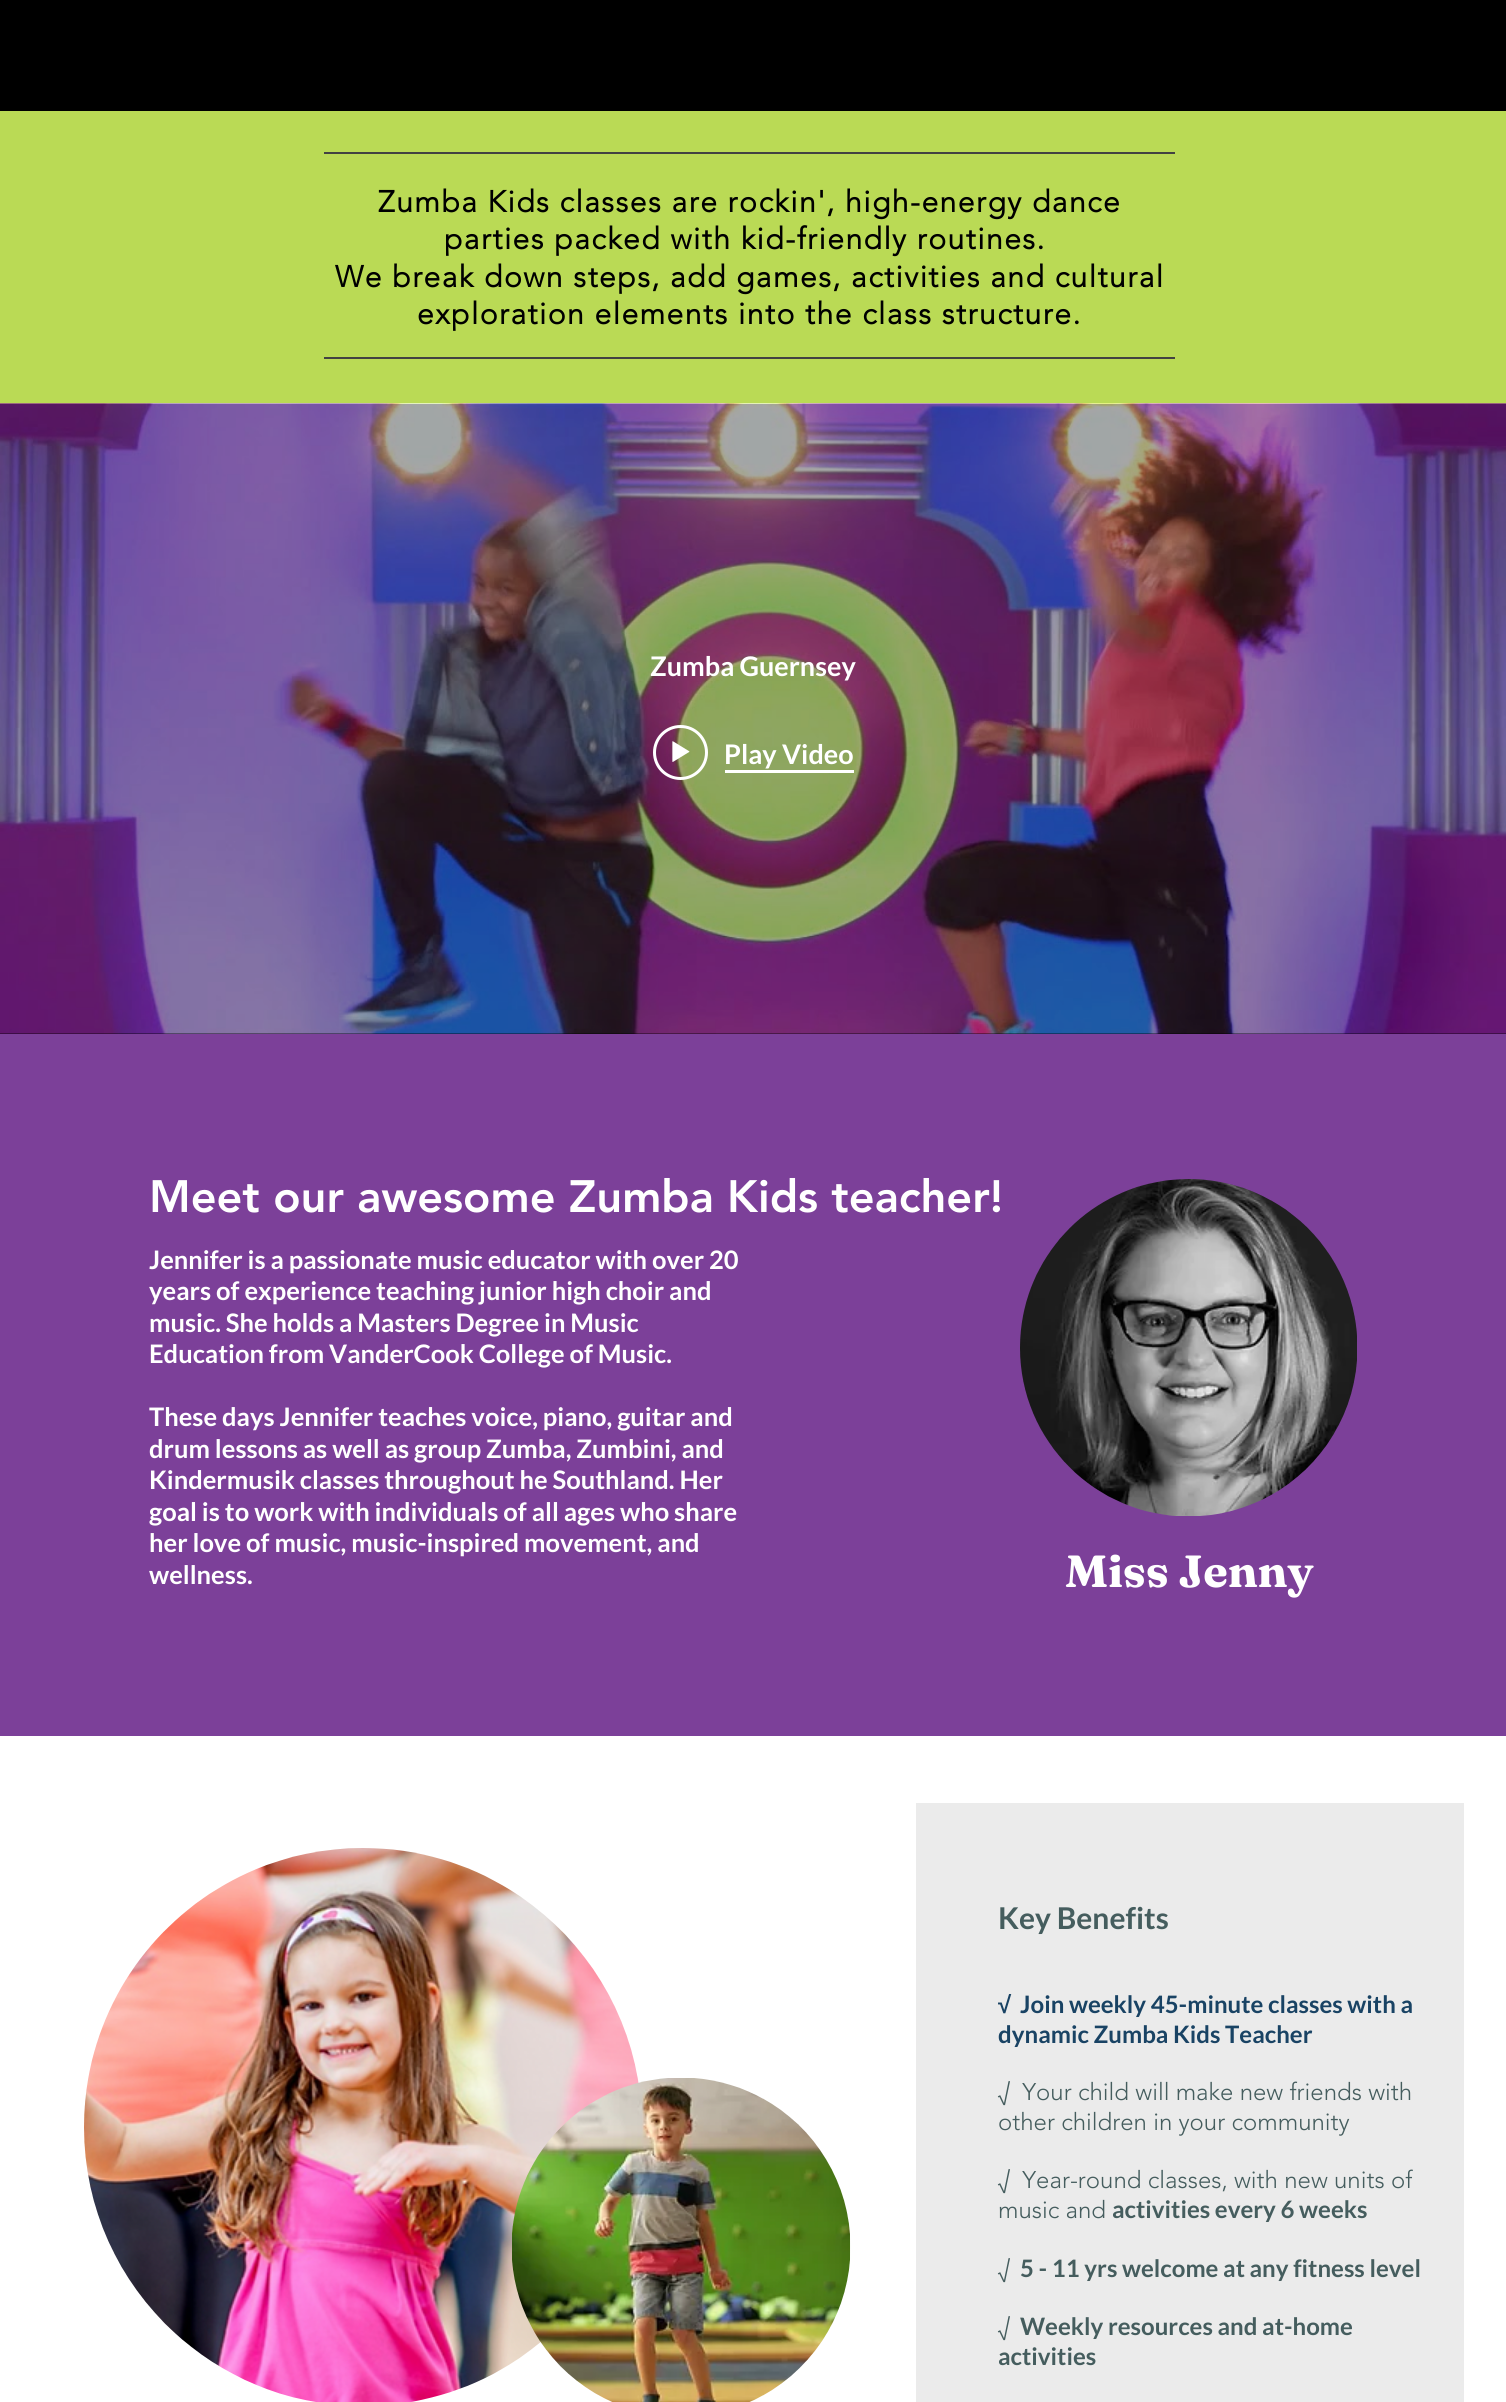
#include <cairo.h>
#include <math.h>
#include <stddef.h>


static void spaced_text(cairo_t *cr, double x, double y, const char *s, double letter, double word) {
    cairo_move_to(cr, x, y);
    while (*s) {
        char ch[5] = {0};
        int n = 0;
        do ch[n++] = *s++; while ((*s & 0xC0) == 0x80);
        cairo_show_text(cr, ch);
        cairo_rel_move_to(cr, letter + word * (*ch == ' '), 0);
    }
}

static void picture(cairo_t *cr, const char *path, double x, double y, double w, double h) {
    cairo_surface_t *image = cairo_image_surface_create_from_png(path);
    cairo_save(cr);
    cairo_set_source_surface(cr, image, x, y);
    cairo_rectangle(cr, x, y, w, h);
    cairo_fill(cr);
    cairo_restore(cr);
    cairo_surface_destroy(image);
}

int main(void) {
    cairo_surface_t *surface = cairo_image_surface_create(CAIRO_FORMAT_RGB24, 1506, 2402);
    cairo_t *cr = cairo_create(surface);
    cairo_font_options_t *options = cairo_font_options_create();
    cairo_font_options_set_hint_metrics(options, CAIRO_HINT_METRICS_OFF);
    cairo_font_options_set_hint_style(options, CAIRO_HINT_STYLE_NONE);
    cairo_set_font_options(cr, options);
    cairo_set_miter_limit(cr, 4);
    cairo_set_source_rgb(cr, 1, 1, 1);
    cairo_paint(cr);
    cairo_set_source_rgb(cr, 0, 0, 0);
    cairo_rectangle(cr, 0, 0, 1506, 111);
    cairo_fill(cr);
    cairo_set_source_rgb(cr, 0.729, 0.855, 0.333);
    cairo_rectangle(cr, 0, 111, 1506, 293);
    cairo_fill(cr);
    cairo_set_source_rgb(cr, 0.259, 0.259, 0.259);
    cairo_rectangle(cr, 324, 152, 851, 2);
    cairo_fill(cr);
    cairo_select_font_face(cr, "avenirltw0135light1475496", CAIRO_FONT_SLANT_NORMAL, CAIRO_FONT_WEIGHT_BOLD);
    cairo_set_font_size(cr, 30);
    cairo_set_source_rgb(cr, 0, 0, 0);
    spaced_text(cr, 378, 212, "Zumba Kids classes are rockin', high-energy dance", 1.5, 0);
    spaced_text(cr, 444, 249, "parties packed with kid-friendly routines.", 1.5, 0);
    spaced_text(cr, 335, 287, "We break down steps, add games, activities and cultural", 1.5, 0);
    spaced_text(cr, 417, 324, "exploration elements into the class structure.", 1.5, 0);
    cairo_set_source_rgb(cr, 0.259, 0.259, 0.259);
    cairo_rectangle(cr, 324, 357, 851, 2);
    cairo_fill(cr);
    cairo_set_source_rgb(cr, 0, 0, 0);
    cairo_rectangle(cr, 0, 1033, 1506, 1);
    cairo_fill(cr);
    picture(cr, "img1.png", 0, 403, 1506, 631);
    picture(cr, "img2.png", 0, 403, 1506, 631);
    cairo_select_font_face(cr, "Lato", CAIRO_FONT_SLANT_NORMAL, CAIRO_FONT_WEIGHT_BOLD);
    cairo_set_font_size(cr, 27);
    cairo_set_source_rgb(cr, 1, 1, 1);
    cairo_move_to(cr, 650, 676);
    cairo_show_text(cr, "Zumba Guernsey");
    cairo_new_path(cr);
    cairo_arc(cr, 680.5, 752.5, 26, 0, 2 * M_PI);
    cairo_set_line_width(cr, 3);
    cairo_stroke(cr);
    picture(cr, "img3.png", 672, 741, 18, 21);
    cairo_rectangle(cr, 725, 770, 129, 3);
    cairo_fill(cr);
    cairo_move_to(cr, 724, 764);
    cairo_show_text(cr, "Play Video");
    cairo_set_source_rgb(cr, 0.486, 0.251, 0.6);
    cairo_rectangle(cr, 0, 1034, 1506, 702);
    cairo_fill(cr);
    cairo_select_font_face(cr, "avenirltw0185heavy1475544 Black", CAIRO_FONT_SLANT_NORMAL, CAIRO_FONT_WEIGHT_NORMAL);
    cairo_set_font_size(cr, 45);
    cairo_set_source_rgb(cr, 1, 1, 1);
    cairo_move_to(cr, 149, 1212);
    cairo_show_text(cr, "Meet our awesome Zumba Kids teacher!");
    picture(cr, "img4.png", 1020, 1179, 337, 337);
    cairo_select_font_face(cr, "Lato", CAIRO_FONT_SLANT_NORMAL, CAIRO_FONT_WEIGHT_BOLD);
    cairo_set_font_size(cr, 25.5);
    cairo_move_to(cr, 149, 1269);
    cairo_show_text(cr, "Jennifer is a passionate music educator with over 20");
    cairo_move_to(cr, 149, 1300);
    cairo_show_text(cr, "years of experience teaching junior high choir and");
    cairo_move_to(cr, 149, 1332);
    cairo_show_text(cr, "music. She holds a Masters Degree in Music");
    cairo_move_to(cr, 149, 1363);
    cairo_show_text(cr, "Education from VanderCook College of Music.");
    cairo_move_to(cr, 149, 1426);
    cairo_show_text(cr, "These days Jennifer teaches voice, piano, guitar and");
    cairo_move_to(cr, 149, 1458);
    cairo_show_text(cr, "drum lessons as well as group Zumba, Zumbini, and");
    cairo_move_to(cr, 149, 1489);
    cairo_show_text(cr, "Kindermusik classes throughout he Southland. Her");
    cairo_move_to(cr, 149, 1521);
    cairo_show_text(cr, "goal is to work with individuals of all ages who share");
    cairo_move_to(cr, 149, 1552);
    cairo_show_text(cr, "her love of music, music-inspired movement, and");
    cairo_move_to(cr, 149, 1584);
    cairo_show_text(cr, "wellness.");
    cairo_select_font_face(cr, "Fraunces", CAIRO_FONT_SLANT_NORMAL, CAIRO_FONT_WEIGHT_BOLD);
    cairo_set_font_size(cr, 45);
    cairo_move_to(cr, 1065, 1587);
    cairo_show_text(cr, "Miss Jenny");
    picture(cr, "img5.png", 84, 1848, 555, 554);
    cairo_set_source_rgb(cr, 0.918, 0.918, 0.918);
    cairo_rectangle(cr, 916, 1803, 548, 599);
    cairo_fill(cr);
    picture(cr, "img6.png", 512, 2078, 339, 324);
    cairo_select_font_face(cr, "Lato", CAIRO_FONT_SLANT_NORMAL, CAIRO_FONT_WEIGHT_BOLD);
    cairo_set_font_size(cr, 30);
    cairo_set_source_rgb(cr, 0.271, 0.365, 0.369);
    cairo_move_to(cr, 998, 1929);
    cairo_show_text(cr, "Key Benefits");
    cairo_select_font_face(cr, "Liberation Sans", CAIRO_FONT_SLANT_NORMAL, CAIRO_FONT_WEIGHT_BOLD);
    cairo_set_font_size(cr, 24);
    cairo_set_source_rgb(cr, 0.098, 0.263, 0.392);
    cairo_move_to(cr, 998, 2013);
    cairo_show_text(cr, "√");
    cairo_select_font_face(cr, "Lato", CAIRO_FONT_SLANT_NORMAL, CAIRO_FONT_WEIGHT_BOLD);
    cairo_move_to(cr, 1020, 2013);
    cairo_show_text(cr, "Join weekly 45-minute classes with a");
    cairo_move_to(cr, 998, 2043);
    cairo_show_text(cr, "dynamic Zumba Kids Teacher");
    cairo_select_font_face(cr, "avenirltw0135light1475496 Light", CAIRO_FONT_SLANT_NORMAL, CAIRO_FONT_WEIGHT_NORMAL);
    cairo_set_source_rgb(cr, 0.271, 0.365, 0.369);
    cairo_move_to(cr, 998, 2100);
    cairo_show_text(cr, "√  Your child will make new friends with");
    cairo_move_to(cr, 998, 2130);
    cairo_show_text(cr, "other children in your community");
    cairo_move_to(cr, 998, 2188);
    cairo_show_text(cr, "√  Year-round classes, with new units of");
    cairo_move_to(cr, 998, 2218);
    cairo_show_text(cr, "music and");
    cairo_select_font_face(cr, "Lato", CAIRO_FONT_SLANT_NORMAL, CAIRO_FONT_WEIGHT_BOLD);
    cairo_move_to(cr, 1112, 2218);
    cairo_show_text(cr, "activities every 6 weeks");
    cairo_select_font_face(cr, "avenirltw0135light1475496 Light", CAIRO_FONT_SLANT_NORMAL, CAIRO_FONT_WEIGHT_NORMAL);
    cairo_move_to(cr, 998, 2277);
    cairo_show_text(cr, "√");
    cairo_select_font_face(cr, "Lato", CAIRO_FONT_SLANT_NORMAL, CAIRO_FONT_WEIGHT_BOLD);
    cairo_move_to(cr, 1020, 2277);
    cairo_show_text(cr, "5 - 11 yrs welcome at any fitness level");
    cairo_select_font_face(cr, "avenirltw0135light1475496 Light", CAIRO_FONT_SLANT_NORMAL, CAIRO_FONT_WEIGHT_NORMAL);
    cairo_move_to(cr, 998, 2335);
    cairo_show_text(cr, "√");
    cairo_select_font_face(cr, "Lato", CAIRO_FONT_SLANT_NORMAL, CAIRO_FONT_WEIGHT_BOLD);
    cairo_move_to(cr, 1020, 2335);
    cairo_show_text(cr, "Weekly resources and at-home");
    cairo_move_to(cr, 998, 2365);
    cairo_show_text(cr, "activities");
    cairo_surface_write_to_png(surface, "page.png");
    cairo_font_options_destroy(options);
    cairo_destroy(cr);
    cairo_surface_destroy(surface);
    return 0;
}
